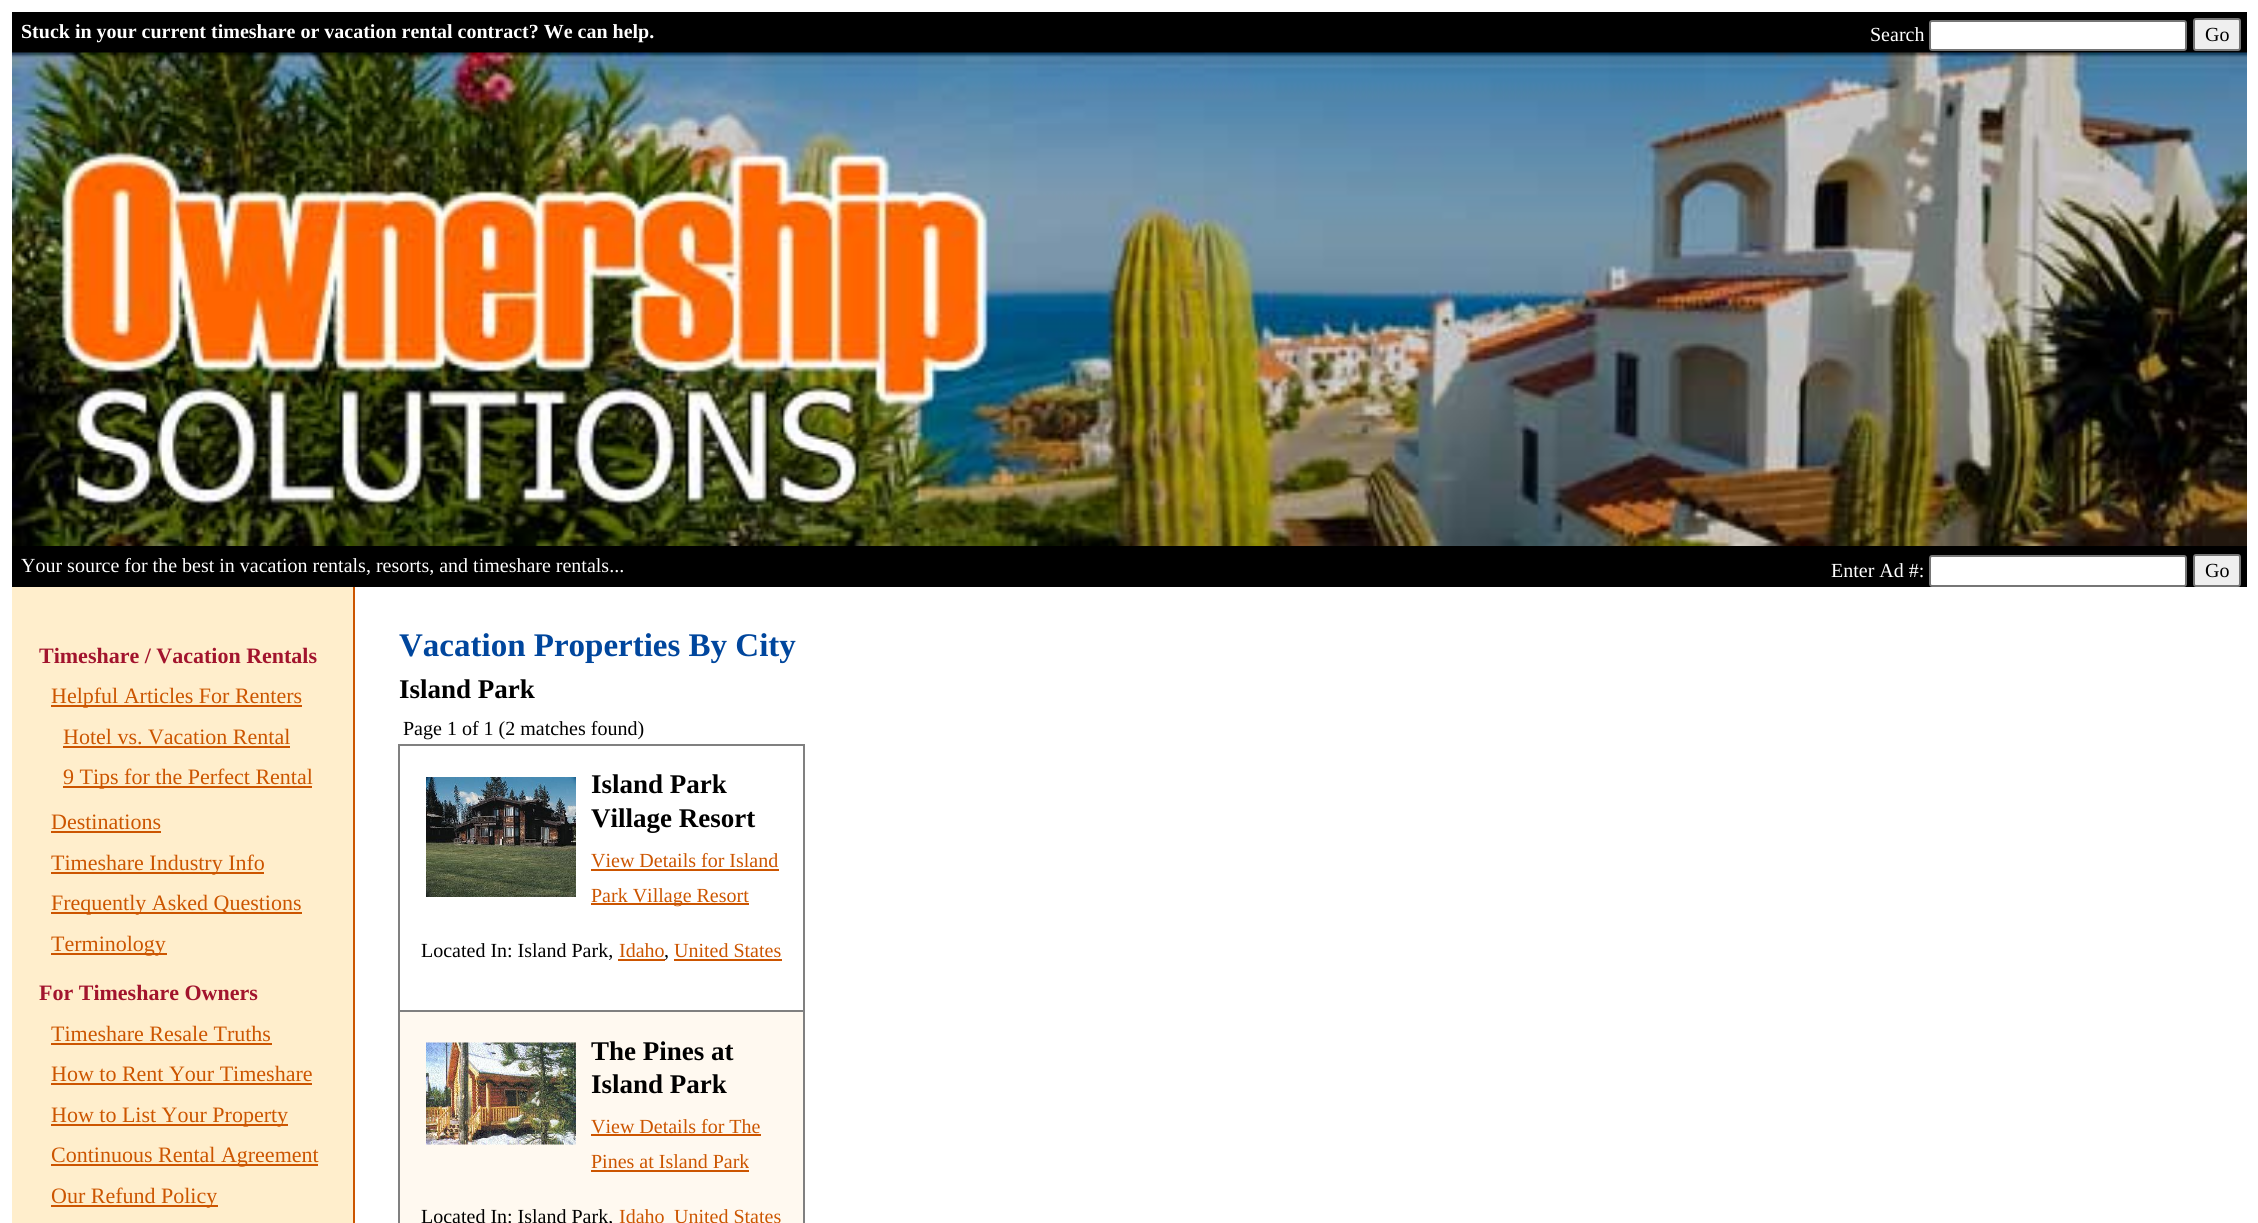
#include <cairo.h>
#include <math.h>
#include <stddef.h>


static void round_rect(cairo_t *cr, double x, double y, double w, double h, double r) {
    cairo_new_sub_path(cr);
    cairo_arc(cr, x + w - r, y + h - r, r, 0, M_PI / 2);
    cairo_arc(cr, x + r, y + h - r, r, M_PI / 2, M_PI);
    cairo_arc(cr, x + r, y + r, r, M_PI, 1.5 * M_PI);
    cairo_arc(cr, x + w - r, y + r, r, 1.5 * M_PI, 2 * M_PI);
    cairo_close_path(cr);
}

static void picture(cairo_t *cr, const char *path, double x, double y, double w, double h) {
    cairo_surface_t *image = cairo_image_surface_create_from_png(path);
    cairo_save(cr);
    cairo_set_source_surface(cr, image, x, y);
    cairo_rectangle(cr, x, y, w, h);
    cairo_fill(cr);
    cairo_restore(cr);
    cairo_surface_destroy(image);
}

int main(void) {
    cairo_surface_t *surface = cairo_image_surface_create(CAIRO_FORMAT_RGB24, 2258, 1223);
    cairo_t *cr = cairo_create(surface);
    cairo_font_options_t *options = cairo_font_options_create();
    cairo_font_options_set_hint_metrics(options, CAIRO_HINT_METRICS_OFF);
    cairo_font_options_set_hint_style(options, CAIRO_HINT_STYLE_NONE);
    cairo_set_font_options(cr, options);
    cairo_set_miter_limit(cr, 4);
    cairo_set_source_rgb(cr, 1, 1, 1);
    cairo_paint(cr);
    cairo_set_source_rgb(cr, 0, 0, 0);
    cairo_rectangle(cr, 12, 12, 2235, 41);
    cairo_fill(cr);
    cairo_select_font_face(cr, "Liberation Serif", CAIRO_FONT_SLANT_NORMAL, CAIRO_FONT_WEIGHT_BOLD);
    cairo_set_font_size(cr, 20);
    cairo_set_source_rgb(cr, 1, 1, 1);
    cairo_move_to(cr, 21, 38);
    cairo_show_text(cr, "Stuck in your current timeshare or vacation rental contract? We can help.");
    cairo_select_font_face(cr, "Liberation Serif", CAIRO_FONT_SLANT_NORMAL, CAIRO_FONT_WEIGHT_NORMAL);
    cairo_move_to(cr, 1870, 41);
    cairo_show_text(cr, "Search");
    round_rect(cr, 1930, 21, 256, 29, 2);
    cairo_fill_preserve(cr);
    cairo_set_source_rgb(cr, 0.463, 0.463, 0.463);
    cairo_stroke(cr);
    cairo_set_source_rgb(cr, 0.937, 0.937, 0.937);
    round_rect(cr, 2194, 19, 46, 31, 2);
    cairo_fill_preserve(cr);
    cairo_set_source_rgb(cr, 0.463, 0.463, 0.463);
    cairo_stroke(cr);
    cairo_set_source_rgb(cr, 0, 0, 0);
    cairo_move_to(cr, 2205, 41);
    cairo_show_text(cr, "Go");
    picture(cr, "img1.png", 12, 52, 2235, 494);
    cairo_rectangle(cr, 12, 546, 2235, 41);
    cairo_fill(cr);
    cairo_set_source_rgb(cr, 1, 1, 1);
    cairo_move_to(cr, 21, 572);
    cairo_show_text(cr, "Your source for the best in vacation rentals, resorts, and timeshare rentals...");
    cairo_move_to(cr, 1831, 577);
    cairo_show_text(cr, "Enter Ad #:");
    round_rect(cr, 1930, 556, 256, 30, 2);
    cairo_fill_preserve(cr);
    cairo_set_source_rgb(cr, 0.463, 0.463, 0.463);
    cairo_stroke(cr);
    cairo_set_source_rgb(cr, 0.937, 0.937, 0.937);
    round_rect(cr, 2194, 555, 46, 31, 2);
    cairo_fill_preserve(cr);
    cairo_set_source_rgb(cr, 0.463, 0.463, 0.463);
    cairo_stroke(cr);
    cairo_set_source_rgb(cr, 0, 0, 0);
    cairo_move_to(cr, 2205, 577);
    cairo_show_text(cr, "Go");
    cairo_set_source_rgb(cr, 1, 0.933, 0.8);
    cairo_rectangle(cr, 12, 587, 341, 636);
    cairo_fill(cr);
    cairo_set_source_rgb(cr, 0.8, 0.333, 0);
    cairo_rectangle(cr, 353, 587, 2, 636);
    cairo_fill(cr);
    cairo_select_font_face(cr, "Liberation Serif", CAIRO_FONT_SLANT_NORMAL, CAIRO_FONT_WEIGHT_BOLD);
    cairo_set_font_size(cr, 22);
    cairo_set_source_rgb(cr, 0.635, 0.082, 0.176);
    cairo_move_to(cr, 39, 663);
    cairo_show_text(cr, "Timeshare / Vacation Rentals");
    cairo_set_source_rgb(cr, 0.8, 0.333, 0);
    cairo_rectangle(cr, 51, 705, 251, 2);
    cairo_fill(cr);
    cairo_select_font_face(cr, "Liberation Serif", CAIRO_FONT_SLANT_NORMAL, CAIRO_FONT_WEIGHT_NORMAL);
    cairo_move_to(cr, 51, 703);
    cairo_show_text(cr, "Helpful Articles For Renters");
    cairo_move_to(cr, 63, 744);
    cairo_show_text(cr, "Hotel vs. Vacation Rental");
    cairo_rectangle(cr, 63, 746, 227, 2);
    cairo_fill(cr);
    cairo_rectangle(cr, 63, 786, 249, 2);
    cairo_fill(cr);
    cairo_move_to(cr, 63, 784);
    cairo_show_text(cr, "9 Tips for the Perfect Rental");
    cairo_move_to(cr, 51, 829);
    cairo_show_text(cr, "Destinations");
    cairo_rectangle(cr, 51, 831, 110, 2);
    cairo_fill(cr);
    cairo_rectangle(cr, 51, 872, 213, 2);
    cairo_fill(cr);
    cairo_move_to(cr, 51, 870);
    cairo_show_text(cr, "Timeshare Industry Info");
    cairo_rectangle(cr, 51, 912, 251, 2);
    cairo_fill(cr);
    cairo_move_to(cr, 51, 910);
    cairo_show_text(cr, "Frequently Asked Questions");
    cairo_rectangle(cr, 51, 953, 116, 2);
    cairo_fill(cr);
    cairo_move_to(cr, 51, 951);
    cairo_show_text(cr, "Terminology");
    cairo_select_font_face(cr, "Liberation Serif", CAIRO_FONT_SLANT_NORMAL, CAIRO_FONT_WEIGHT_BOLD);
    cairo_set_source_rgb(cr, 0.635, 0.082, 0.176);
    cairo_move_to(cr, 39, 1000);
    cairo_show_text(cr, "For Timeshare Owners");
    cairo_select_font_face(cr, "Liberation Serif", CAIRO_FONT_SLANT_NORMAL, CAIRO_FONT_WEIGHT_NORMAL);
    cairo_set_source_rgb(cr, 0.8, 0.333, 0);
    cairo_move_to(cr, 51, 1041);
    cairo_show_text(cr, "Timeshare Resale Truths");
    cairo_rectangle(cr, 51, 1043, 221, 2);
    cairo_fill(cr);
    cairo_move_to(cr, 51, 1081);
    cairo_show_text(cr, "How to Rent Your Timeshare");
    cairo_rectangle(cr, 51, 1083, 261, 2);
    cairo_fill(cr);
    cairo_rectangle(cr, 51, 1124, 237, 2);
    cairo_fill(cr);
    cairo_move_to(cr, 51, 1122);
    cairo_show_text(cr, "How to List Your Property");
    cairo_rectangle(cr, 51, 1164, 267, 2);
    cairo_fill(cr);
    cairo_move_to(cr, 51, 1162);
    cairo_show_text(cr, "Continuous Rental Agreement");
    cairo_rectangle(cr, 51, 1205, 167, 2);
    cairo_fill(cr);
    cairo_move_to(cr, 51, 1203);
    cairo_show_text(cr, "Our Refund Policy");
    cairo_select_font_face(cr, "Liberation Serif", CAIRO_FONT_SLANT_NORMAL, CAIRO_FONT_WEIGHT_BOLD);
    cairo_set_font_size(cr, 33);
    cairo_set_source_rgb(cr, 0, 0.275, 0.616);
    cairo_move_to(cr, 399, 656);
    cairo_show_text(cr, "Vacation Properties By City");
    cairo_set_font_size(cr, 27);
    cairo_set_source_rgb(cr, 0, 0, 0);
    cairo_move_to(cr, 399, 698);
    cairo_show_text(cr, "Island Park");
    cairo_select_font_face(cr, "Liberation Serif", CAIRO_FONT_SLANT_NORMAL, CAIRO_FONT_WEIGHT_NORMAL);
    cairo_set_font_size(cr, 20);
    cairo_move_to(cr, 403, 735);
    cairo_show_text(cr, "Page 1 of 1 (2 matches found)");
    cairo_set_source_rgb(cr, 0.502, 0.502, 0.502);
    cairo_rectangle(cr, 398, 744, 406, 2);
    cairo_fill(cr);
    cairo_rectangle(cr, 398, 1010, 406, 2);
    cairo_fill(cr);
    cairo_rectangle(cr, 803, 1010, 2, 213);
    cairo_fill(cr);
    cairo_rectangle(cr, 803, 744, 2, 267);
    cairo_fill(cr);
    cairo_rectangle(cr, 398, 1010, 2, 213);
    cairo_fill(cr);
    cairo_rectangle(cr, 398, 744, 2, 267);
    cairo_fill(cr);
    cairo_select_font_face(cr, "Liberation Serif", CAIRO_FONT_SLANT_NORMAL, CAIRO_FONT_WEIGHT_BOLD);
    cairo_set_font_size(cr, 27);
    cairo_set_source_rgb(cr, 0, 0, 0);
    cairo_move_to(cr, 591, 793);
    cairo_show_text(cr, "Island Park");
    cairo_move_to(cr, 591, 827);
    cairo_show_text(cr, "Village Resort");
    cairo_select_font_face(cr, "Liberation Serif", CAIRO_FONT_SLANT_NORMAL, CAIRO_FONT_WEIGHT_NORMAL);
    cairo_set_font_size(cr, 20);
    cairo_set_source_rgb(cr, 0.8, 0.333, 0);
    cairo_move_to(cr, 591, 867);
    cairo_show_text(cr, "View Details for Island");
    cairo_rectangle(cr, 591, 869, 188, 2);
    cairo_fill(cr);
    cairo_rectangle(cr, 591, 903, 158, 2);
    cairo_fill(cr);
    cairo_move_to(cr, 591, 902);
    cairo_show_text(cr, "Park Village Resort");
    cairo_set_source_rgb(cr, 0, 0, 0);
    cairo_move_to(cr, 421, 957);
    cairo_show_text(cr, "Located In: Island Park,");
    cairo_set_source_rgb(cr, 0.8, 0.333, 0);
    cairo_move_to(cr, 619, 957);
    cairo_show_text(cr, "Idaho");
    cairo_rectangle(cr, 618, 959, 47, 2);
    cairo_fill(cr);
    cairo_set_source_rgb(cr, 0, 0, 0);
    cairo_move_to(cr, 664, 957);
    cairo_show_text(cr, ",");
    cairo_set_source_rgb(cr, 0.8, 0.333, 0);
    cairo_move_to(cr, 674, 957);
    cairo_show_text(cr, "United States");
    cairo_rectangle(cr, 674, 959, 108, 2);
    cairo_fill(cr);
    picture(cr, "img2.png", 426, 777, 150, 120);
    cairo_set_source_rgb(cr, 1, 0.976, 0.941);
    cairo_rectangle(cr, 400, 1012, 403, 211);
    cairo_fill(cr);
    cairo_select_font_face(cr, "Liberation Serif", CAIRO_FONT_SLANT_NORMAL, CAIRO_FONT_WEIGHT_BOLD);
    cairo_set_font_size(cr, 27);
    cairo_set_source_rgb(cr, 0, 0, 0);
    cairo_move_to(cr, 591, 1060);
    cairo_show_text(cr, "The Pines at");
    cairo_move_to(cr, 591, 1093);
    cairo_show_text(cr, "Island Park");
    cairo_select_font_face(cr, "Liberation Serif", CAIRO_FONT_SLANT_NORMAL, CAIRO_FONT_WEIGHT_NORMAL);
    cairo_set_font_size(cr, 20);
    cairo_set_source_rgb(cr, 0.8, 0.333, 0);
    cairo_move_to(cr, 591, 1133);
    cairo_show_text(cr, "View Details for The");
    cairo_rectangle(cr, 591, 1134, 170, 2);
    cairo_fill(cr);
    cairo_move_to(cr, 591, 1168);
    cairo_show_text(cr, "Pines at Island Park");
    cairo_rectangle(cr, 591, 1170, 158, 2);
    cairo_fill(cr);
    cairo_set_source_rgb(cr, 0, 0, 0);
    cairo_move_to(cr, 421, 1223);
    cairo_show_text(cr, "Located In: Island Park,");
    cairo_set_source_rgb(cr, 0.8, 0.333, 0);
    cairo_move_to(cr, 619, 1223);
    cairo_show_text(cr, "Idaho");
    cairo_move_to(cr, 674, 1223);
    cairo_show_text(cr, "United States");
    picture(cr, "img3.png", 426, 1042, 150, 103);
    cairo_surface_write_to_png(surface, "page.png");
    cairo_font_options_destroy(options);
    cairo_destroy(cr);
    cairo_surface_destroy(surface);
    return 0;
}
